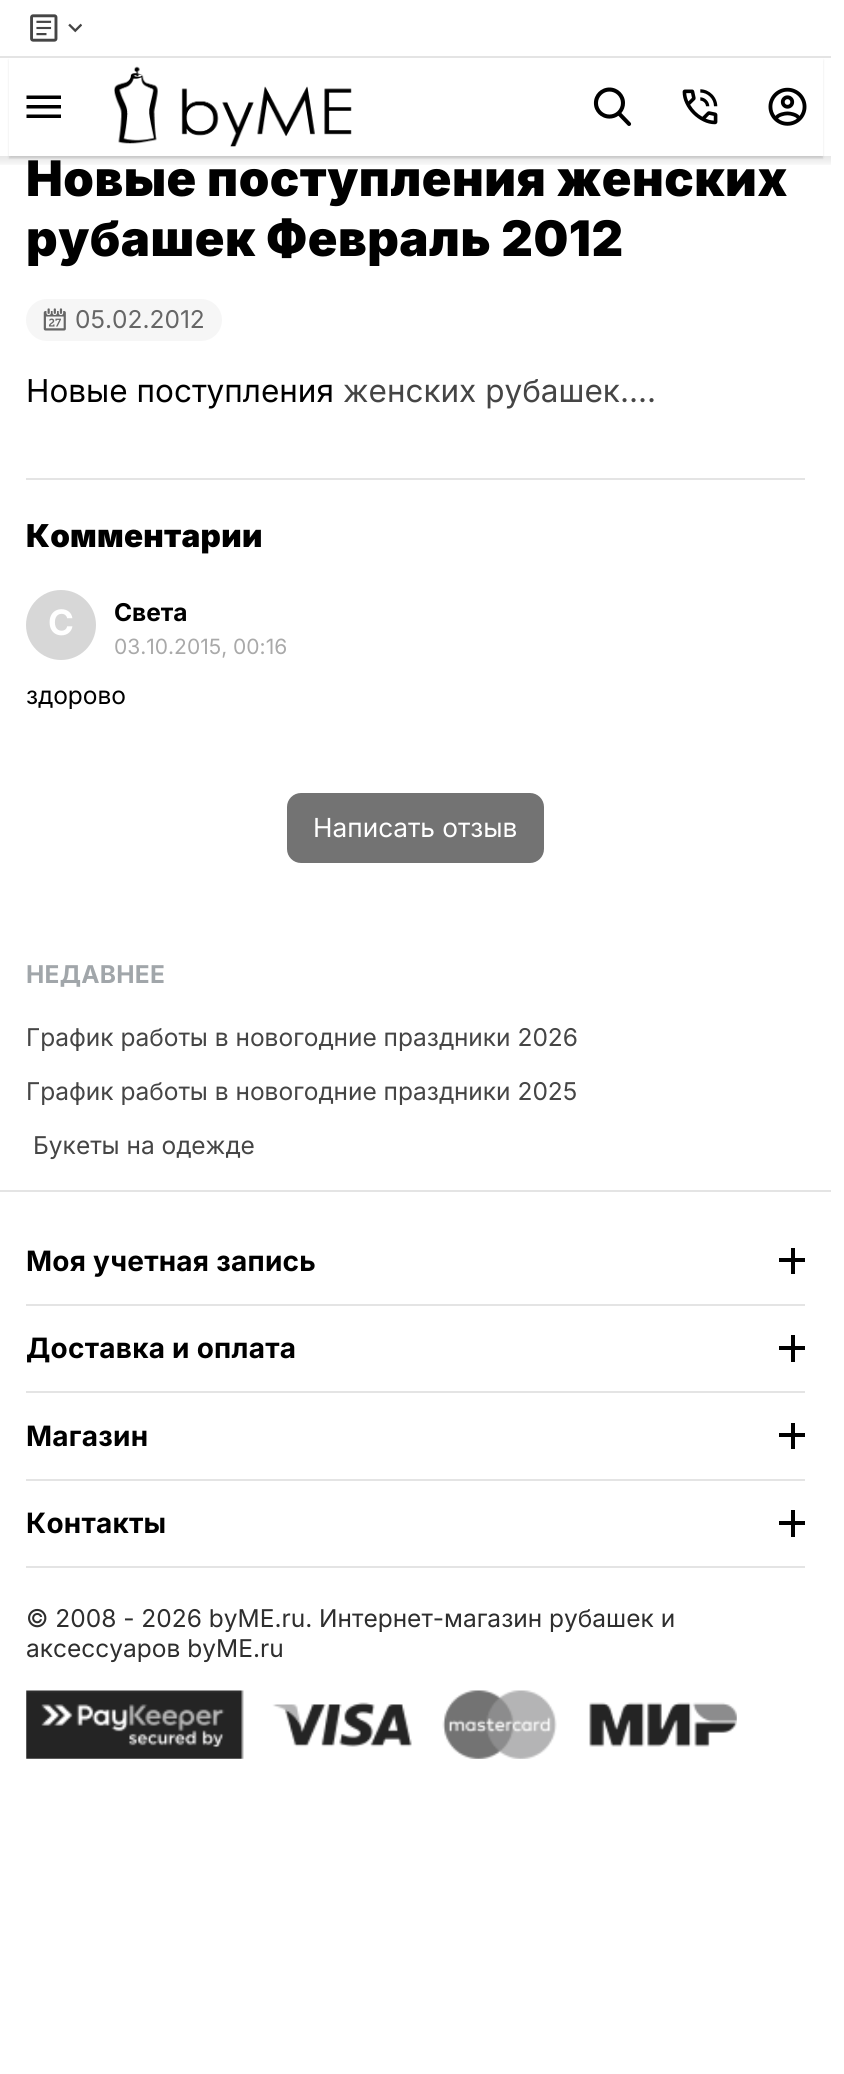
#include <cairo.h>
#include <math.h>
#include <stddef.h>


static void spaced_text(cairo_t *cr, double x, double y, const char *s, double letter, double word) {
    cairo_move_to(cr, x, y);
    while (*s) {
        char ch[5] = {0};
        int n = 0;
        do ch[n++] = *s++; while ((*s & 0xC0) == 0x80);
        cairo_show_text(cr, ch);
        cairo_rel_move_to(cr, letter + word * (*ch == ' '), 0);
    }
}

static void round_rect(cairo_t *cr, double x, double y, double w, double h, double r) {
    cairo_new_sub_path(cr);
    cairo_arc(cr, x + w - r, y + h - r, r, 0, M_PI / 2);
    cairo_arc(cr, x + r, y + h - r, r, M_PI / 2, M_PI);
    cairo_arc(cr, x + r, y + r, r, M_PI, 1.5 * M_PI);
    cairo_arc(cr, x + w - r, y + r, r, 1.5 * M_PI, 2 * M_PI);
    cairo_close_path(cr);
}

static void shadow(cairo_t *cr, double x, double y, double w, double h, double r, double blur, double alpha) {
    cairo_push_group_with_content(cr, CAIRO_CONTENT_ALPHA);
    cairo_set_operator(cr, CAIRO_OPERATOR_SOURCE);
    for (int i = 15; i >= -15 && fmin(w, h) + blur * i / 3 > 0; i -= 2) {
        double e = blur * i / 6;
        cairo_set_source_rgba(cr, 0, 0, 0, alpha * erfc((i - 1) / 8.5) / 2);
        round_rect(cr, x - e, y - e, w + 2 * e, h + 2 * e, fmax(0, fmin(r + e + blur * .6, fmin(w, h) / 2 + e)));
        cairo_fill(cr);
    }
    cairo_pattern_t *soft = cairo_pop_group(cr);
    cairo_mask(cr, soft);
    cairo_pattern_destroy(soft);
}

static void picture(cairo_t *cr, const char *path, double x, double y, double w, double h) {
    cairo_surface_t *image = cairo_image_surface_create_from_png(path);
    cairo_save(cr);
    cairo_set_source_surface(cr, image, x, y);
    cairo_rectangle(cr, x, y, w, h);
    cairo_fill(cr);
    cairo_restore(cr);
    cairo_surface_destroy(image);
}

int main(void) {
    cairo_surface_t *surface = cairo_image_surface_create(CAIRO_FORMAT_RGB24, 844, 2074);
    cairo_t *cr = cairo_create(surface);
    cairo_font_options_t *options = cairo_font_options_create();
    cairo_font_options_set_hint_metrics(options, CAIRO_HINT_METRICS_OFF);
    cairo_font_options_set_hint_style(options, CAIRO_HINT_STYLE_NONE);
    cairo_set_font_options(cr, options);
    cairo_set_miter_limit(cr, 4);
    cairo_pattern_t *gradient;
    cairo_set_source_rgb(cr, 1, 1, 1);
    cairo_paint(cr);
    cairo_set_source_rgb(cr, 0.894, 0.894, 0.894);
    cairo_rectangle(cr, 0, 56, 831, 2);
    cairo_fill(cr);
    picture(cr, "img1.png", 30, 14, 28, 28);
    picture(cr, "img2.png", 68, 23, 14, 10);
    cairo_save(cr);
    cairo_rectangle(cr, 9, 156, 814, 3);
    cairo_clip(cr);
    cairo_set_source_rgb(cr, 0, 0, 0);
    shadow(cr, 9, 61, 814, 98, 0, 2, 0.05);
    cairo_restore(cr);
    cairo_save(cr);
    cairo_set_fill_rule(cr, CAIRO_FILL_RULE_EVEN_ODD);
    cairo_new_path(cr);
    cairo_move_to(cr, 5, 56);
    cairo_line_to(cr, 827, 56);
    cairo_line_to(cr, 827, 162);
    cairo_line_to(cr, 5, 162);
    cairo_close_path(cr);
    cairo_move_to(cr, 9, 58);
    cairo_line_to(cr, 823, 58);
    cairo_line_to(cr, 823, 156);
    cairo_line_to(cr, 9, 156);
    cairo_close_path(cr);
    cairo_clip(cr);
    cairo_set_source_rgb(cr, 0, 0, 0);
    shadow(cr, 9, 60, 814, 98, 0, 1, 0.1);
    cairo_restore(cr);
    cairo_set_source_rgb(cr, 0, 0, 0);
    cairo_new_path(cr);
    cairo_move_to(cr, 26.5, 118);
    cairo_line_to(cr, 61, 118);
    cairo_line_to(cr, 61, 114.5);
    cairo_line_to(cr, 26.5, 114.5);
    cairo_close_path(cr);
    cairo_move_to(cr, 26.5, 108.5);
    cairo_line_to(cr, 61, 108.5);
    cairo_line_to(cr, 61, 105);
    cairo_line_to(cr, 26.5, 105);
    cairo_close_path(cr);
    cairo_move_to(cr, 26.5, 95.5);
    cairo_line_to(cr, 26.5, 99);
    cairo_line_to(cr, 61, 99);
    cairo_line_to(cr, 61, 95.5);
    cairo_close_path(cr);
    cairo_fill(cr);
    picture(cr, "img3.png", 114, 66, 238, 81);
    picture(cr, "img4.png", 593, 87, 39, 39);
    picture(cr, "img5.png", 682, 89, 36, 36);
    picture(cr, "img6.png", 768, 87, 39, 39);
    gradient = cairo_pattern_create_linear(416, 156, 416, 168);
    cairo_pattern_add_color_stop_rgba(gradient, 0, 0, 0, 0, 0.1);
    cairo_pattern_add_color_stop_rgba(gradient, 1, 0, 0, 0, 0);
    cairo_set_source(cr, gradient);
    cairo_pattern_destroy(gradient);
    cairo_rectangle(cr, 0, 156, 831, 9);
    cairo_fill(cr);
    cairo_select_font_face(cr, "Inter Black", CAIRO_FONT_SLANT_NORMAL, CAIRO_FONT_WEIGHT_NORMAL);
    cairo_set_font_size(cr, 49);
    cairo_set_source_rgb(cr, 0, 0, 0);
    spaced_text(cr, 26, 196, "Новые поступления женских", 0.5, 0);
    spaced_text(cr, 26, 256, "рубашек Февраль 2012", 0.5, 0);
    cairo_set_source_rgb(cr, 0.961, 0.961, 0.961);
    round_rect(cr, 26, 299, 196, 42, 21);
    cairo_fill(cr);
    picture(cr, "img7.png", 43, 308, 23, 23);
    cairo_select_font_face(cr, "Inter", CAIRO_FONT_SLANT_NORMAL, CAIRO_FONT_WEIGHT_NORMAL);
    cairo_set_font_size(cr, 24.5);
    cairo_set_source_rgb(cr, 0.4, 0.4, 0.4);
    cairo_move_to(cr, 75, 328);
    cairo_show_text(cr, "05.02.2012");
    cairo_set_font_size(cr, 31.5);
    cairo_set_source_rgb(cr, 0, 0, 0);
    cairo_move_to(cr, 26, 402);
    cairo_show_text(cr, "Новые поступления");
    cairo_set_source_rgb(cr, 0.271, 0.271, 0.271);
    cairo_move_to(cr, 343, 402);
    cairo_show_text(cr, "женских рубашек....");
    cairo_set_source_rgb(cr, 0.894, 0.894, 0.894);
    cairo_rectangle(cr, 26, 478, 779, 2);
    cairo_fill(cr);
    cairo_select_font_face(cr, "Inter Black", CAIRO_FONT_SLANT_NORMAL, CAIRO_FONT_WEIGHT_NORMAL);
    cairo_set_source_rgb(cr, 0, 0, 0);
    spaced_text(cr, 26, 547, "Комментарии", 0.25, 0);
    cairo_set_source_rgb(cr, 0.843, 0.843, 0.843);
    cairo_new_path(cr);
    cairo_arc(cr, 61, 625, 35, 0, 2 * M_PI);
    cairo_fill(cr);
    cairo_select_font_face(cr, "Inter", CAIRO_FONT_SLANT_NORMAL, CAIRO_FONT_WEIGHT_BOLD);
    cairo_set_font_size(cr, 35);
    cairo_set_source_rgb(cr, 1, 1, 1);
    cairo_move_to(cr, 48, 635);
    cairo_show_text(cr, "С");
    cairo_set_font_size(cr, 24.5);
    cairo_set_source_rgb(cr, 0, 0, 0);
    cairo_move_to(cr, 114, 621);
    cairo_show_text(cr, "Света");
    cairo_select_font_face(cr, "Inter", CAIRO_FONT_SLANT_NORMAL, CAIRO_FONT_WEIGHT_NORMAL);
    cairo_set_font_size(cr, 21);
    cairo_set_source_rgb(cr, 0.663, 0.663, 0.663);
    cairo_move_to(cr, 114, 654);
    cairo_show_text(cr, "03.10.2015, 00:16");
    cairo_set_font_size(cr, 24.5);
    cairo_set_source_rgb(cr, 0, 0, 0);
    cairo_move_to(cr, 26, 704);
    cairo_show_text(cr, "здорово");
    cairo_set_source_rgb(cr, 0.451, 0.451, 0.451);
    round_rect(cr, 287, 793, 257, 70, 14);
    cairo_fill(cr);
    cairo_set_font_size(cr, 26.25);
    cairo_set_source_rgb(cr, 1, 1, 1);
    cairo_move_to(cr, 313, 837);
    cairo_show_text(cr, "Написать отзыв");
    cairo_select_font_face(cr, "Inter", CAIRO_FONT_SLANT_NORMAL, CAIRO_FONT_WEIGHT_BOLD);
    cairo_set_font_size(cr, 24.5);
    cairo_set_source_rgb(cr, 0.631, 0.651, 0.667);
    spaced_text(cr, 26, 983, "НЕДАВНЕЕ", 0.25, 0);
    cairo_select_font_face(cr, "Inter", CAIRO_FONT_SLANT_NORMAL, CAIRO_FONT_WEIGHT_NORMAL);
    cairo_set_source_rgb(cr, 0.271, 0.271, 0.271);
    cairo_move_to(cr, 26, 1046);
    cairo_show_text(cr, "График работы в новогодние праздники 2026");
    cairo_move_to(cr, 26, 1100);
    cairo_show_text(cr, "График работы в новогодние праздники 2025");
    cairo_move_to(cr, 33, 1154);
    cairo_show_text(cr, "Букеты на одежде");
    cairo_set_source_rgb(cr, 0.894, 0.894, 0.894);
    cairo_rectangle(cr, 0, 1190, 831, 2);
    cairo_fill(cr);
    cairo_rectangle(cr, 26, 1304, 779, 2);
    cairo_fill(cr);
    cairo_select_font_face(cr, "Inter", CAIRO_FONT_SLANT_NORMAL, CAIRO_FONT_WEIGHT_BOLD);
    cairo_set_font_size(cr, 28);
    cairo_set_source_rgb(cr, 0, 0, 0);
    spaced_text(cr, 26, 1271, "Моя учетная запись", 0.25, 0);
    cairo_rectangle(cr, 791, 1248, 4, 26);
    cairo_fill(cr);
    cairo_rectangle(cr, 779, 1258, 26, 4);
    cairo_fill(cr);
    cairo_set_source_rgb(cr, 0.894, 0.894, 0.894);
    cairo_rectangle(cr, 26, 1391, 779, 2);
    cairo_fill(cr);
    cairo_set_source_rgb(cr, 0, 0, 0);
    spaced_text(cr, 26, 1358, "Доставка и оплата", 0.25, 0);
    cairo_rectangle(cr, 791, 1335, 4, 27);
    cairo_fill(cr);
    cairo_rectangle(cr, 779, 1346, 26, 4);
    cairo_fill(cr);
    cairo_set_source_rgb(cr, 0.894, 0.894, 0.894);
    cairo_rectangle(cr, 26, 1479, 779, 2);
    cairo_fill(cr);
    cairo_set_source_rgb(cr, 0, 0, 0);
    spaced_text(cr, 26, 1446, "Магазин", 0.25, 0);
    cairo_rectangle(cr, 791, 1423, 4, 26);
    cairo_fill(cr);
    cairo_rectangle(cr, 779, 1433, 26, 4);
    cairo_fill(cr);
    cairo_set_source_rgb(cr, 0.894, 0.894, 0.894);
    cairo_rectangle(cr, 26, 1566, 779, 2);
    cairo_fill(cr);
    cairo_set_source_rgb(cr, 0, 0, 0);
    spaced_text(cr, 26, 1533, "Контакты", 0.25, 0);
    cairo_rectangle(cr, 791, 1510, 4, 27);
    cairo_fill(cr);
    cairo_rectangle(cr, 779, 1521, 26, 4);
    cairo_fill(cr);
    cairo_select_font_face(cr, "Inter", CAIRO_FONT_SLANT_NORMAL, CAIRO_FONT_WEIGHT_NORMAL);
    cairo_set_font_size(cr, 24.5);
    cairo_set_source_rgb(cr, 0.18, 0.18, 0.18);
    cairo_move_to(cr, 26, 1627);
    cairo_show_text(cr, "© 2008 - 2026 byME.ru. Интернет-магазин рубашек и");
    cairo_move_to(cr, 26, 1657);
    cairo_show_text(cr, "аксессуаров byME.ru");
    picture(cr, "img8.png", 26, 1690, 711, 69);
    cairo_surface_write_to_png(surface, "page.png");
    cairo_font_options_destroy(options);
    cairo_destroy(cr);
    cairo_surface_destroy(surface);
    return 0;
}
